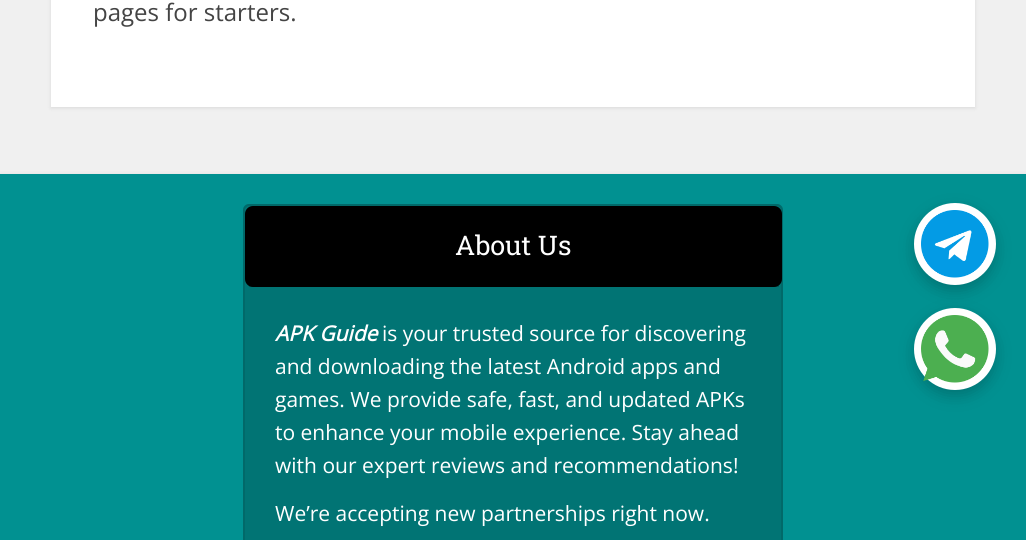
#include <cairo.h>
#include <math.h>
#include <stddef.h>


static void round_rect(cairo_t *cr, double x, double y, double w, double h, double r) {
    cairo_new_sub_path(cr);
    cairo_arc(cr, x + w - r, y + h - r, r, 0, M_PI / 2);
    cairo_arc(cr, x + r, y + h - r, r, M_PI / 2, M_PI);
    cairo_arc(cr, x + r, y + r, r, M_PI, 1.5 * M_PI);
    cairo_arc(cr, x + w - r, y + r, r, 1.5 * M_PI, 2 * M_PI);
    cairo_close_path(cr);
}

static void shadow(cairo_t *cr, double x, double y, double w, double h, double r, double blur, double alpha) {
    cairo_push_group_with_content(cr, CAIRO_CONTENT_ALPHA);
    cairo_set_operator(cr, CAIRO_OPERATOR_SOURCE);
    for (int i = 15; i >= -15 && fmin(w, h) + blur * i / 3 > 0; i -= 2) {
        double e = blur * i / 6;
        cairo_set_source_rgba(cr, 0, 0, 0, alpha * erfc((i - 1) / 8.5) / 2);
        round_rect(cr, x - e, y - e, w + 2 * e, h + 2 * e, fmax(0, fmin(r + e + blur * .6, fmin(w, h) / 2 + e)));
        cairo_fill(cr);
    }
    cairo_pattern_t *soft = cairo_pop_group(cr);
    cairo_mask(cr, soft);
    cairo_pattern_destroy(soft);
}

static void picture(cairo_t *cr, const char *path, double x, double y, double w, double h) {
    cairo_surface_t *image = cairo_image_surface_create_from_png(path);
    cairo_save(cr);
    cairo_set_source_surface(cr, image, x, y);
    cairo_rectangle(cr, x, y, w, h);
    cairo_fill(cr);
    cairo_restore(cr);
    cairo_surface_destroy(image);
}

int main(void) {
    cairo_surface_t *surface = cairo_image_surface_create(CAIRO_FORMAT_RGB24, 1026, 540);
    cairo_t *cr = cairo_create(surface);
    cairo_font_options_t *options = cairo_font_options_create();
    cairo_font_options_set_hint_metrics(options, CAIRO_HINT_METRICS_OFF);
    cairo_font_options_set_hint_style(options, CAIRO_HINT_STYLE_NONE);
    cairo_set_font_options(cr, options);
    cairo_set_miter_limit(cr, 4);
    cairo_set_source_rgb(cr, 0.941, 0.941, 0.941);
    cairo_paint(cr);
    cairo_set_source_rgb(cr, 0, 0, 0);
    shadow(cr, 51, -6, 924, 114, 0, 2, 0.1);
    cairo_set_source_rgb(cr, 1, 1, 1);
    cairo_rectangle(cr, 51, 0, 924, 107);
    cairo_fill(cr);
    cairo_select_font_face(cr, "Open Sans", CAIRO_FONT_SLANT_NORMAL, CAIRO_FONT_WEIGHT_NORMAL);
    cairo_set_font_size(cr, 24);
    cairo_set_source_rgb(cr, 0.267, 0.267, 0.267);
    cairo_move_to(cr, 93, 21);
    cairo_show_text(cr, "pages for starters.");
    cairo_set_source_rgb(cr, 0, 0, 0);
    shadow(cr, 0, 177, 1026, 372, 0, 3, 0.2);
    cairo_set_source_rgb(cr, 0.004, 0.569, 0.569);
    cairo_rectangle(cr, 0, 174, 1026, 366);
    cairo_fill(cr);
    cairo_set_source_rgb(cr, 0.004, 0.455, 0.455);
    round_rect(cr, 243, 204, 540, 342, 6);
    cairo_fill(cr);
    round_rect(cr, 244, 205, 538, 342, 5);
    cairo_set_source_rgba(cr, 0, 0, 0, 0.1);
    cairo_stroke(cr);
    cairo_set_source_rgb(cr, 0, 0, 0);
    round_rect(cr, 245, 206, 537, 81, 8);
    cairo_fill(cr);
    cairo_set_source_rgba(cr, 0, 0, 0, 0.2);
    cairo_rectangle(cr, 249, 285, 530, 2);
    cairo_fill(cr);
    cairo_select_font_face(cr, "Roboto Slab", CAIRO_FONT_SLANT_NORMAL, CAIRO_FONT_WEIGHT_NORMAL);
    cairo_set_font_size(cr, 27);
    cairo_set_source_rgb(cr, 1, 1, 1);
    cairo_move_to(cr, 455, 255);
    cairo_show_text(cr, "About Us");
    cairo_select_font_face(cr, "Open Sans", CAIRO_FONT_SLANT_ITALIC, CAIRO_FONT_WEIGHT_BOLD);
    cairo_set_font_size(cr, 21);
    cairo_move_to(cr, 275, 341);
    cairo_show_text(cr, "APK Guide");
    cairo_select_font_face(cr, "Open Sans", CAIRO_FONT_SLANT_NORMAL, CAIRO_FONT_WEIGHT_NORMAL);
    cairo_move_to(cr, 382, 341);
    cairo_show_text(cr, "is your trusted source for discovering");
    cairo_move_to(cr, 275, 374);
    cairo_show_text(cr, "and downloading the latest Android apps and");
    cairo_move_to(cr, 275, 407);
    cairo_show_text(cr, "games. We provide safe, fast, and updated APKs");
    cairo_move_to(cr, 275, 440);
    cairo_show_text(cr, "to enhance your mobile experience. Stay ahead");
    cairo_move_to(cr, 275, 473);
    cairo_show_text(cr, "with our expert reviews and recommendations!");
    cairo_move_to(cr, 275, 521);
    cairo_show_text(cr, "We’re accepting new partnerships right now.");
    cairo_set_source_rgb(cr, 0, 0, 0);
    shadow(cr, 914, 209, 82, 82, 41, 7.5, 0.2);
    cairo_set_source_rgb(cr, 1, 1, 1);
    cairo_arc(cr, 955, 244, 41, 0, 2 * M_PI);
    cairo_fill(cr);
    picture(cr, "img1.png", 921, 210, 68, 68);
    cairo_set_source_rgb(cr, 0, 0, 0);
    shadow(cr, 914, 314, 82, 82, 41, 7.5, 0.2);
    cairo_set_source_rgb(cr, 1, 1, 1);
    cairo_arc(cr, 955, 349, 41, 0, 2 * M_PI);
    cairo_fill(cr);
    picture(cr, "img2.png", 921, 315, 68, 68);
    cairo_surface_write_to_png(surface, "page.png");
    cairo_font_options_destroy(options);
    cairo_destroy(cr);
    cairo_surface_destroy(surface);
    return 0;
}
